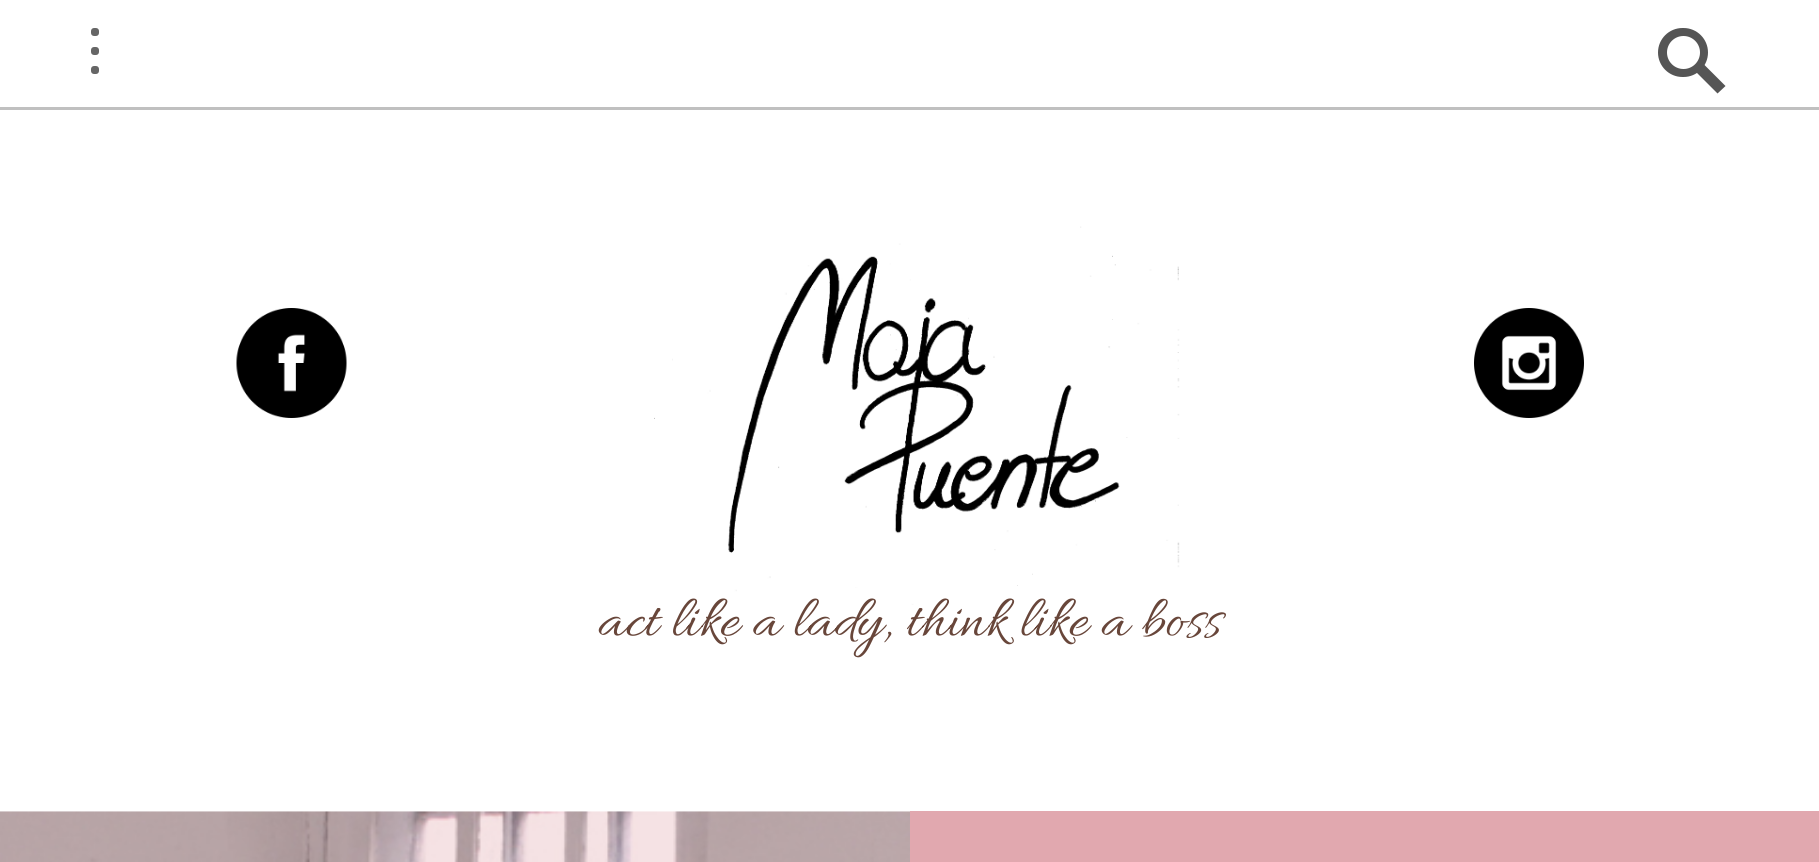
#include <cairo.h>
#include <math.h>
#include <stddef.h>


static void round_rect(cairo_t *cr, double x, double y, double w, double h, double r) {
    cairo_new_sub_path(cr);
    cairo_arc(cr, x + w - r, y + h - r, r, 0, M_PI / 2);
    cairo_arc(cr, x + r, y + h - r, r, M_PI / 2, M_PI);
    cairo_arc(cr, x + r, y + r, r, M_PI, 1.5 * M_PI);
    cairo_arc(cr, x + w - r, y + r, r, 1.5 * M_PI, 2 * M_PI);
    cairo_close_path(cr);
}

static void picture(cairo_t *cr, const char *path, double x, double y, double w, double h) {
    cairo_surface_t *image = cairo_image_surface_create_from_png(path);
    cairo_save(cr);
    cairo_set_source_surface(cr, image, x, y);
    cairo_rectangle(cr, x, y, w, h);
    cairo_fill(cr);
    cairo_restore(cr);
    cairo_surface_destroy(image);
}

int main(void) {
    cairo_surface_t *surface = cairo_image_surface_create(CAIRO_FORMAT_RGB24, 1819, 862);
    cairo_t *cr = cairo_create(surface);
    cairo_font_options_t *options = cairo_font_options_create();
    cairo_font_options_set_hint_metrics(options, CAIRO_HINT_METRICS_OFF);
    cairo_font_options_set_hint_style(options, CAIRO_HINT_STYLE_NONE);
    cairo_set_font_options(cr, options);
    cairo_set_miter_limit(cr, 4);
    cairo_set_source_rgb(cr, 1, 1, 1);
    cairo_paint(cr);
    cairo_set_source_rgb(cr, 0.753, 0.753, 0.753);
    cairo_rectangle(cr, 0, 107, 1819, 3);
    cairo_fill(cr);
    cairo_set_source_rgb(cr, 0.4, 0.4, 0.4);
    round_rect(cr, 91, 28, 8, 8, 3);
    cairo_fill(cr);
    round_rect(cr, 91, 47, 8, 8, 3);
    cairo_fill(cr);
    round_rect(cr, 91, 66, 8, 8, 3);
    cairo_fill(cr);
    cairo_set_source_rgb(cr, 0.333, 0.333, 0.333);
    round_rect(cr, 1658, 28, 50, 49, 24.5);
    cairo_fill(cr);
    cairo_set_source_rgb(cr, 1, 1, 1);
    cairo_arc(cr, 1683.5, 52.5, 16.5, 0, 2 * M_PI);
    cairo_fill(cr);
    cairo_set_source_rgb(cr, 0.333, 0.333, 0.333);
    cairo_new_path(cr);
    cairo_move_to(cr, 1704, 64.5);
    cairo_line_to(cr, 1725.5, 86);
    cairo_line_to(cr, 1717.5, 93.5);
    cairo_line_to(cr, 1696, 72);
    cairo_curve_to(cr, 1694, 70, 1694, 66.5, 1696, 64.5);
    cairo_curve_to(cr, 1698.5, 62, 1702, 62, 1704, 64.5);
    cairo_close_path(cr);
    cairo_fill(cr);
    picture(cr, "img1.png", 236, 308, 111, 110);
    picture(cr, "img2.png", 654, 226, 526, 379);
    picture(cr, "img3.png", 1474, 308, 110, 110);
    cairo_select_font_face(cr, "Allura", CAIRO_FONT_SLANT_NORMAL, CAIRO_FONT_WEIGHT_NORMAL);
    cairo_set_font_size(cr, 60.5);
    cairo_set_source_rgb(cr, 0.408, 0.275, 0.227);
    cairo_move_to(cr, 598, 635);
    cairo_show_text(cr, "act like a lady, think like a boss");
    picture(cr, "img4.png", 0, 811, 910, 51);
    cairo_set_source_rgb(cr, 0.882, 0.659, 0.686);
    cairo_rectangle(cr, 910, 811, 909, 51);
    cairo_fill(cr);
    cairo_surface_write_to_png(surface, "page.png");
    cairo_font_options_destroy(options);
    cairo_destroy(cr);
    cairo_surface_destroy(surface);
    return 0;
}
